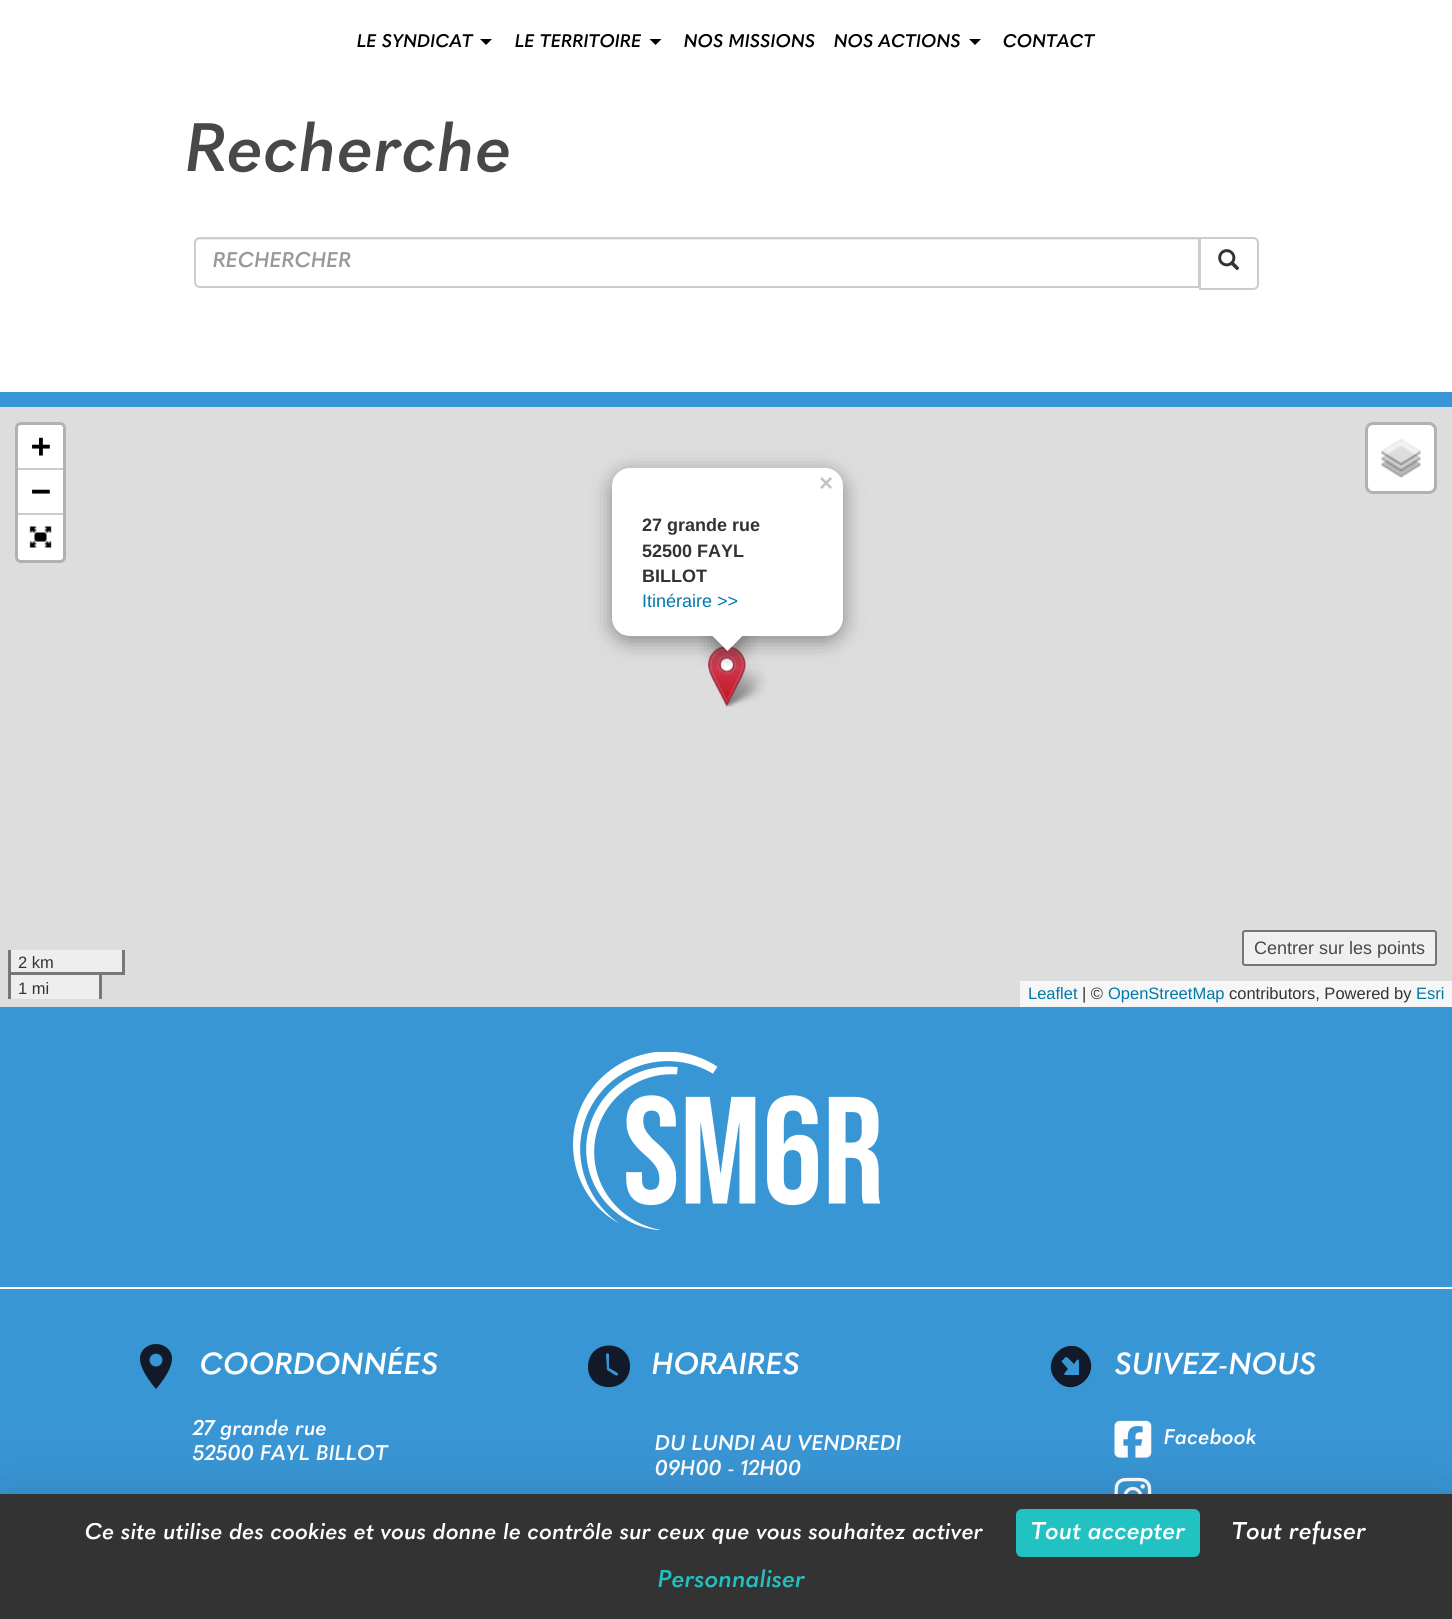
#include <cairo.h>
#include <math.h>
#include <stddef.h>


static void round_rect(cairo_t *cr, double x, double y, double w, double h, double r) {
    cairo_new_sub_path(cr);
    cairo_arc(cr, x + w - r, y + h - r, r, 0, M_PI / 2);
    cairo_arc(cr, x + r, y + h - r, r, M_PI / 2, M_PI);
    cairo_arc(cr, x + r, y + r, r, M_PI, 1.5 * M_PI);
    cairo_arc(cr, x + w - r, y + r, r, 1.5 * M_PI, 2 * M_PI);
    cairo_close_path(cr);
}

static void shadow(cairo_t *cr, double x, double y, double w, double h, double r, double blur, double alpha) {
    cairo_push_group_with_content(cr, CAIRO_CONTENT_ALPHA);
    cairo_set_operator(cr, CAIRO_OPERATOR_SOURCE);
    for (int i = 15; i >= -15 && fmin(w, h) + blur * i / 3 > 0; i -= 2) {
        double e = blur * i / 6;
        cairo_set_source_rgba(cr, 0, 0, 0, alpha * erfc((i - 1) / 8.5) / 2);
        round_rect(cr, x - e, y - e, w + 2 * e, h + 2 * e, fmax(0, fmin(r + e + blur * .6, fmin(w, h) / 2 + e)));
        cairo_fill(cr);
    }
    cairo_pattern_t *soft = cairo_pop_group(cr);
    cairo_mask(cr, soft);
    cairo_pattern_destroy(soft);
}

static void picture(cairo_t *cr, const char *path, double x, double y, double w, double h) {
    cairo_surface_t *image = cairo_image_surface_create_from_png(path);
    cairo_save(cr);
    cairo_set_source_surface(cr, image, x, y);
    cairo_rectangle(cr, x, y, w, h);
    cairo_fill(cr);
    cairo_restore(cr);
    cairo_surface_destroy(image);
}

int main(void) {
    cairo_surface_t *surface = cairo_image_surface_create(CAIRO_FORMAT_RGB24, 1452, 1619);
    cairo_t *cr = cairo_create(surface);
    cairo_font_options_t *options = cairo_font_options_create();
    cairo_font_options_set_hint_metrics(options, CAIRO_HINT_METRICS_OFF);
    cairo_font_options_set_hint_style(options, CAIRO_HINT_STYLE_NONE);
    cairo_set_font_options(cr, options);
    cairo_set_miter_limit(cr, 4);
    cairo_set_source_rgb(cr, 1, 1, 1);
    cairo_paint(cr);
    cairo_select_font_face(cr, "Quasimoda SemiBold", CAIRO_FONT_SLANT_ITALIC, CAIRO_FONT_WEIGHT_NORMAL);
    cairo_set_font_size(cr, 18);
    cairo_set_source_rgb(cr, 0, 0, 0);
    cairo_move_to(cr, 357, 47);
    cairo_show_text(cr, "LE SYNDICAT");
    cairo_new_path(cr);
    cairo_move_to(cr, 480, 39);
    cairo_line_to(cr, 492, 39);
    cairo_line_to(cr, 486, 45);
    cairo_close_path(cr);
    cairo_fill(cr);
    cairo_move_to(cr, 515, 47);
    cairo_show_text(cr, "LE TERRITOIRE");
    cairo_new_path(cr);
    cairo_move_to(cr, 649.5, 39);
    cairo_line_to(cr, 661.5, 39);
    cairo_line_to(cr, 655.5, 45);
    cairo_close_path(cr);
    cairo_fill(cr);
    cairo_move_to(cr, 684, 47);
    cairo_show_text(cr, "NOS MISSIONS");
    cairo_move_to(cr, 834, 47);
    cairo_show_text(cr, "NOS ACTIONS");
    cairo_new_path(cr);
    cairo_move_to(cr, 969, 39);
    cairo_line_to(cr, 981, 39);
    cairo_line_to(cr, 975, 45);
    cairo_close_path(cr);
    cairo_fill(cr);
    cairo_move_to(cr, 1003, 47);
    cairo_show_text(cr, "CONTACT");
    cairo_set_font_size(cr, 67.5);
    cairo_set_source_rgb(cr, 0.282, 0.282, 0.282);
    cairo_move_to(cr, 186, 171);
    cairo_show_text(cr, "Recherche");
    cairo_set_source_rgb(cr, 0.925, 0.925, 0.925);
    cairo_new_path(cr);
    cairo_move_to(cr, 200, 240);
    cairo_line_to(cr, 1198, 240);
    cairo_line_to(cr, 1198, 287);
    cairo_line_to(cr, 1199, 287);
    cairo_line_to(cr, 1199, 239);
    cairo_line_to(cr, 200, 239);
    cairo_curve_to(cr, 197, 239, 195, 241, 195, 244);
    cairo_curve_to(cr, 195, 242, 197, 240, 200, 240);
    cairo_close_path(cr);
    cairo_fill(cr);
    cairo_new_path(cr);
    cairo_move_to(cr, 200, 238);
    cairo_line_to(cr, 1199, 238);
    cairo_line_to(cr, 1199, 287);
    cairo_line_to(cr, 200, 287);
    cairo_curve_to(cr, 197, 287, 195, 285, 195, 282);
    cairo_line_to(cr, 195, 243);
    cairo_curve_to(cr, 195, 240, 197, 238, 200, 238);
    cairo_close_path(cr);
    cairo_set_source_rgb(cr, 0.8, 0.8, 0.8);
    cairo_stroke(cr);
    cairo_set_font_size(cr, 21);
    cairo_set_source_rgb(cr, 0.6, 0.6, 0.6);
    cairo_move_to(cr, 213, 267);
    cairo_show_text(cr, "RECHERCHER");
    cairo_set_source_rgb(cr, 1, 1, 1);
    cairo_new_path(cr);
    cairo_move_to(cr, 1200, 238);
    cairo_line_to(cr, 1253, 238);
    cairo_curve_to(cr, 1256, 238, 1258, 240, 1258, 243);
    cairo_line_to(cr, 1258, 284);
    cairo_curve_to(cr, 1258, 287, 1256, 289, 1253, 289);
    cairo_line_to(cr, 1200, 289);
    cairo_close_path(cr);
    cairo_fill_preserve(cr);
    cairo_set_source_rgb(cr, 0.8, 0.8, 0.8);
    cairo_stroke(cr);
    picture(cr, "img1.png", 1218, 249, 22, 22);
    cairo_set_source_rgb(cr, 0.224, 0.588, 0.835);
    cairo_rectangle(cr, 0, 392, 1452, 15);
    cairo_fill(cr);
    cairo_set_source_rgb(cr, 0.867, 0.867, 0.867);
    cairo_rectangle(cr, 0, 407, 1452, 600);
    cairo_fill(cr);
    cairo_set_source_rgb(cr, 0.933, 0.933, 0.933);
    cairo_rectangle(cr, 11, 975, 88, 24);
    cairo_fill(cr);
    round_rect(cr, 16.5, 423.5, 48, 138, 4.5);
    cairo_set_source_rgb(cr, 0.694, 0.694, 0.694);
    cairo_set_line_width(cr, 3);
    cairo_stroke(cr);
    cairo_set_source_rgb(cr, 1, 1, 1);
    cairo_new_path(cr);
    cairo_move_to(cr, 21, 425);
    cairo_line_to(cr, 60, 425);
    cairo_curve_to(cr, 61.5, 425, 63, 426.5, 63, 428);
    cairo_line_to(cr, 63, 470);
    cairo_line_to(cr, 18, 470);
    cairo_line_to(cr, 18, 428);
    cairo_curve_to(cr, 18, 426.5, 19.5, 425, 21, 425);
    cairo_close_path(cr);
    cairo_fill(cr);
    cairo_set_source_rgb(cr, 0.8, 0.8, 0.8);
    cairo_rectangle(cr, 18, 468, 45, 2);
    cairo_fill(cr);
    cairo_select_font_face(cr, "DejaVu Sans Mono", CAIRO_FONT_SLANT_NORMAL, CAIRO_FONT_WEIGHT_BOLD);
    cairo_set_font_size(cr, 33);
    cairo_set_source_rgb(cr, 0, 0, 0);
    cairo_move_to(cr, 31, 457);
    cairo_show_text(cr, "+");
    cairo_set_source_rgb(cr, 1, 1, 1);
    cairo_rectangle(cr, 18, 470, 45, 43);
    cairo_fill(cr);
    cairo_set_source_rgb(cr, 0.8, 0.8, 0.8);
    cairo_rectangle(cr, 18, 513, 45, 2);
    cairo_fill(cr);
    cairo_set_source_rgb(cr, 0, 0, 0);
    cairo_move_to(cr, 31, 502);
    cairo_show_text(cr, "−");
    cairo_set_source_rgb(cr, 1, 1, 1);
    cairo_new_path(cr);
    cairo_move_to(cr, 18, 515);
    cairo_line_to(cr, 63, 515);
    cairo_line_to(cr, 63, 557);
    cairo_curve_to(cr, 63, 558.5, 61.5, 560, 60, 560);
    cairo_line_to(cr, 21, 560);
    cairo_curve_to(cr, 19.5, 560, 18, 558.5, 18, 557);
    cairo_close_path(cr);
    cairo_fill(cr);
    picture(cr, "img2.png", 29, 526, 23, 22);
    round_rect(cr, 1368, 425, 66, 66, 5);
    cairo_fill(cr);
    round_rect(cr, 1366.5, 423.5, 69, 69, 6.5);
    cairo_set_source_rgba(cr, 0, 0, 0, 0.2);
    cairo_stroke(cr);
    picture(cr, "img3.png", 1381, 439, 40, 38);
    cairo_set_source_rgb(cr, 0.933, 0.933, 0.933);
    cairo_rectangle(cr, 11, 950, 111, 22);
    cairo_fill(cr);
    cairo_set_source_rgb(cr, 0.467, 0.467, 0.467);
    cairo_rectangle(cr, 122, 950, 3, 25);
    cairo_fill(cr);
    cairo_rectangle(cr, 102, 972, 23, 3);
    cairo_fill(cr);
    cairo_rectangle(cr, 8, 950, 3, 25);
    cairo_fill(cr);
    cairo_select_font_face(cr, "Liberation Sans", CAIRO_FONT_SLANT_NORMAL, CAIRO_FONT_WEIGHT_NORMAL);
    cairo_set_font_size(cr, 16.5);
    cairo_set_source_rgb(cr, 0.2, 0.2, 0.2);
    cairo_move_to(cr, 18, 968);
    cairo_show_text(cr, "2 km");
    cairo_set_source_rgb(cr, 0.467, 0.467, 0.467);
    cairo_rectangle(cr, 8, 972, 94, 3);
    cairo_fill(cr);
    cairo_rectangle(cr, 99, 972, 3, 27);
    cairo_fill(cr);
    cairo_rectangle(cr, 8, 972, 3, 27);
    cairo_fill(cr);
    cairo_set_source_rgb(cr, 0.2, 0.2, 0.2);
    cairo_move_to(cr, 18, 994);
    cairo_show_text(cr, "1 mi");
    cairo_set_source_rgb(cr, 0.937, 0.937, 0.937);
    round_rect(cr, 1243, 931, 193, 34, 2);
    cairo_fill_preserve(cr);
    cairo_set_source_rgb(cr, 0.463, 0.463, 0.463);
    cairo_set_line_width(cr, 2);
    cairo_stroke(cr);
    cairo_set_font_size(cr, 18);
    cairo_set_source_rgb(cr, 0.282, 0.282, 0.282);
    cairo_move_to(cr, 1254, 954);
    cairo_show_text(cr, "Centrer sur les points");
    cairo_set_source_rgb(cr, 0.961, 0.961, 0.961);
    cairo_rectangle(cr, 1020, 981, 432, 26);
    cairo_fill(cr);
    cairo_set_font_size(cr, 16.5);
    cairo_set_source_rgb(cr, 0, 0.471, 0.659);
    cairo_move_to(cr, 1028, 999);
    cairo_show_text(cr, "Leaflet");
    cairo_set_source_rgb(cr, 0.2, 0.2, 0.2);
    cairo_move_to(cr, 1082, 999);
    cairo_show_text(cr, "| ©");
    cairo_set_source_rgb(cr, 0, 0.471, 0.659);
    cairo_move_to(cr, 1108, 999);
    cairo_show_text(cr, "OpenStreetMap");
    cairo_set_source_rgb(cr, 0.2, 0.2, 0.2);
    cairo_move_to(cr, 1229, 999);
    cairo_show_text(cr, "contributors, Powered by");
    cairo_set_source_rgb(cr, 0, 0.471, 0.659);
    cairo_move_to(cr, 1416, 999);
    cairo_show_text(cr, "Esri");
    picture(cr, "img5.png", 723, 664, 44, 43);
    picture(cr, "img4.png", 708, 646, 38, 61);
    cairo_set_source_rgb(cr, 0, 0, 0);
    shadow(cr, 612, 473, 231, 168, 18, 10.5, 0.4);
    cairo_set_source_rgb(cr, 1, 1, 1);
    round_rect(cr, 612, 468, 231, 168, 18);
    cairo_fill(cr);
    cairo_select_font_face(cr, "Liberation Sans", CAIRO_FONT_SLANT_NORMAL, CAIRO_FONT_WEIGHT_BOLD);
    cairo_set_font_size(cr, 24);
    cairo_set_source_rgb(cr, 0.765, 0.765, 0.765);
    cairo_move_to(cr, 819, 491);
    cairo_show_text(cr, "×");
    cairo_set_font_size(cr, 18);
    cairo_set_source_rgb(cr, 0.2, 0.2, 0.2);
    cairo_move_to(cr, 642, 531);
    cairo_show_text(cr, "27 grande rue");
    cairo_move_to(cr, 642, 557);
    cairo_show_text(cr, "52500 FAYL");
    cairo_move_to(cr, 642, 582);
    cairo_show_text(cr, "BILLOT");
    cairo_select_font_face(cr, "Liberation Sans", CAIRO_FONT_SLANT_NORMAL, CAIRO_FONT_WEIGHT_NORMAL);
    cairo_set_source_rgb(cr, 0, 0.471, 0.659);
    cairo_move_to(cr, 642, 607);
    cairo_show_text(cr, "Itinéraire >>");
    cairo_save(cr);
    cairo_rectangle(cr, 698, 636, 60, 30);
    cairo_clip(cr);
    cairo_set_source_rgb(cr, 0, 0, 0);
    shadow(cr, 716, 626, 25, 25, 0, 10.5, 0.4);
    cairo_restore(cr);
    cairo_save(cr);
    cairo_rectangle(cr, 698, 636, 60, 30);
    cairo_clip(cr);
    cairo_set_source_rgb(cr, 1, 1, 1);
    cairo_new_path(cr);
    cairo_move_to(cr, 727.5, 615);
    cairo_line_to(cr, 745.5, 633);
    cairo_line_to(cr, 727.5, 651);
    cairo_line_to(cr, 709.5, 633);
    cairo_close_path(cr);
    cairo_fill(cr);
    cairo_restore(cr);
    cairo_set_source_rgb(cr, 0.224, 0.588, 0.835);
    cairo_rectangle(cr, 0, 1007, 1452, 487);
    cairo_fill(cr);
    picture(cr, "img6.png", 573, 1052, 307, 178);
    cairo_set_source_rgb(cr, 1, 1, 1);
    cairo_rectangle(cr, 0, 1287, 1452, 2);
    cairo_fill(cr);
    picture(cr, "img7.png", 139, 1344, 34, 45);
    cairo_select_font_face(cr, "Quasimoda SemiBold", CAIRO_FONT_SLANT_ITALIC, CAIRO_FONT_WEIGHT_NORMAL);
    cairo_set_font_size(cr, 30);
    cairo_move_to(cr, 200, 1374);
    cairo_show_text(cr, "COORDONNÉES");
    cairo_set_font_size(cr, 21);
    cairo_move_to(cr, 193, 1435);
    cairo_show_text(cr, "27 grande rue");
    cairo_move_to(cr, 193, 1460);
    cairo_show_text(cr, "52500 FAYL BILLOT");
    cairo_set_source_rgb(cr, 0.071, 0.102, 0.165);
    cairo_set_fill_rule(cr, CAIRO_FILL_RULE_EVEN_ODD);
    cairo_new_path(cr);
    cairo_move_to(cr, 630, 1366);
    cairo_curve_to(cr, 630, 1394, 588, 1394, 588, 1367);
    cairo_curve_to(cr, 588, 1338, 630, 1339, 630, 1366);
    cairo_close_path(cr);
    cairo_move_to(cr, 609, 1355);
    cairo_curve_to(cr, 609, 1353, 607, 1353, 606, 1354);
    cairo_line_to(cr, 607, 1370);
    cairo_line_to(cr, 612, 1373);
    cairo_curve_to(cr, 612, 1373, 618, 1378, 618, 1374);
    cairo_curve_to(cr, 618, 1373, 617, 1373, 616, 1372);
    cairo_line_to(cr, 609, 1368);
    cairo_close_path(cr);
    cairo_fill(cr);
    cairo_set_font_size(cr, 30);
    cairo_set_source_rgb(cr, 1, 1, 1);
    cairo_move_to(cr, 652, 1374);
    cairo_show_text(cr, "HORAIRES");
    cairo_set_font_size(cr, 21);
    cairo_move_to(cr, 655, 1450);
    cairo_show_text(cr, "DU LUNDI AU VENDREDI");
    cairo_move_to(cr, 655, 1475);
    cairo_show_text(cr, "09H00 - 12H00");
    cairo_save(cr);
    cairo_set_fill_rule(cr, CAIRO_FILL_RULE_WINDING);
    cairo_rectangle(cr, 1050, 1346, 42, 42);
    cairo_clip(cr);
    cairo_set_source_rgb(cr, 0.071, 0.102, 0.165);
    cairo_new_path(cr);
    cairo_move_to(cr, 1085, 1352);
    cairo_curve_to(cr, 1104, 1371, 1075, 1400, 1057, 1381);
    cairo_curve_to(cr, 1038, 1362, 1067, 1333, 1085, 1352);
    cairo_close_path(cr);
    cairo_move_to(cr, 1062, 1362);
    cairo_line_to(cr, 1068, 1369);
    cairo_curve_to(cr, 1066, 1372, 1061, 1375, 1067, 1375);
    cairo_line_to(cr, 1079, 1375);
    cairo_line_to(cr, 1079, 1363);
    cairo_curve_to(cr, 1079, 1356, 1076, 1361, 1074, 1364);
    cairo_line_to(cr, 1068, 1358);
    cairo_curve_to(cr, 1065, 1356, 1066, 1357, 1063, 1360);
    cairo_curve_to(cr, 1062, 1360, 1061, 1361, 1062, 1362);
    cairo_close_path(cr);
    cairo_fill(cr);
    cairo_restore(cr);
    cairo_set_font_size(cr, 30);
    cairo_move_to(cr, 1115, 1374);
    cairo_show_text(cr, "SUIVEZ-NOUS");
    picture(cr, "img8.png", 1114, 1420, 38, 38);
    cairo_set_font_size(cr, 21);
    cairo_move_to(cr, 1164, 1444);
    cairo_show_text(cr, "Facebook");
    picture(cr, "img9.png", 1114, 1477, 38, 17);
    cairo_set_source_rgb(cr, 0, 0, 0);
    shadow(cr, 0, 1524, 1452, 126, 0, 45, 0.25);
    cairo_set_source_rgb(cr, 0.2, 0.2, 0.2);
    cairo_rectangle(cr, 0, 1494, 1452, 125);
    cairo_fill(cr);
    cairo_save(cr);
    cairo_set_fill_rule(cr, CAIRO_FILL_RULE_WINDING);
    cairo_rectangle(cr, 71, 1523, 928, 22);
    cairo_clip(cr);
    cairo_set_font_size(cr, 22.5);
    cairo_set_source_rgb(cr, 1, 1, 1);
    cairo_move_to(cr, 85, 1539);
    cairo_show_text(cr, "Ce site utilise des cookies et vous donne le contrôle sur ceux que vous souhaitez activer");
    cairo_restore(cr);
    cairo_set_source_rgb(cr, 0.137, 0.761, 0.761);
    round_rect(cr, 1016, 1509, 184, 48, 6);
    cairo_fill(cr);
    cairo_set_font_size(cr, 24);
    cairo_set_source_rgb(cr, 1, 1, 1);
    cairo_move_to(cr, 1031, 1539);
    cairo_show_text(cr, "Tout accepter");
    cairo_move_to(cr, 1232, 1539);
    cairo_show_text(cr, "Tout refuser");
    cairo_set_source_rgb(cr, 0.137, 0.761, 0.761);
    cairo_move_to(cr, 658, 1587);
    cairo_show_text(cr, "Personnaliser");
    cairo_surface_write_to_png(surface, "page.png");
    cairo_font_options_destroy(options);
    cairo_destroy(cr);
    cairo_surface_destroy(surface);
    return 0;
}
